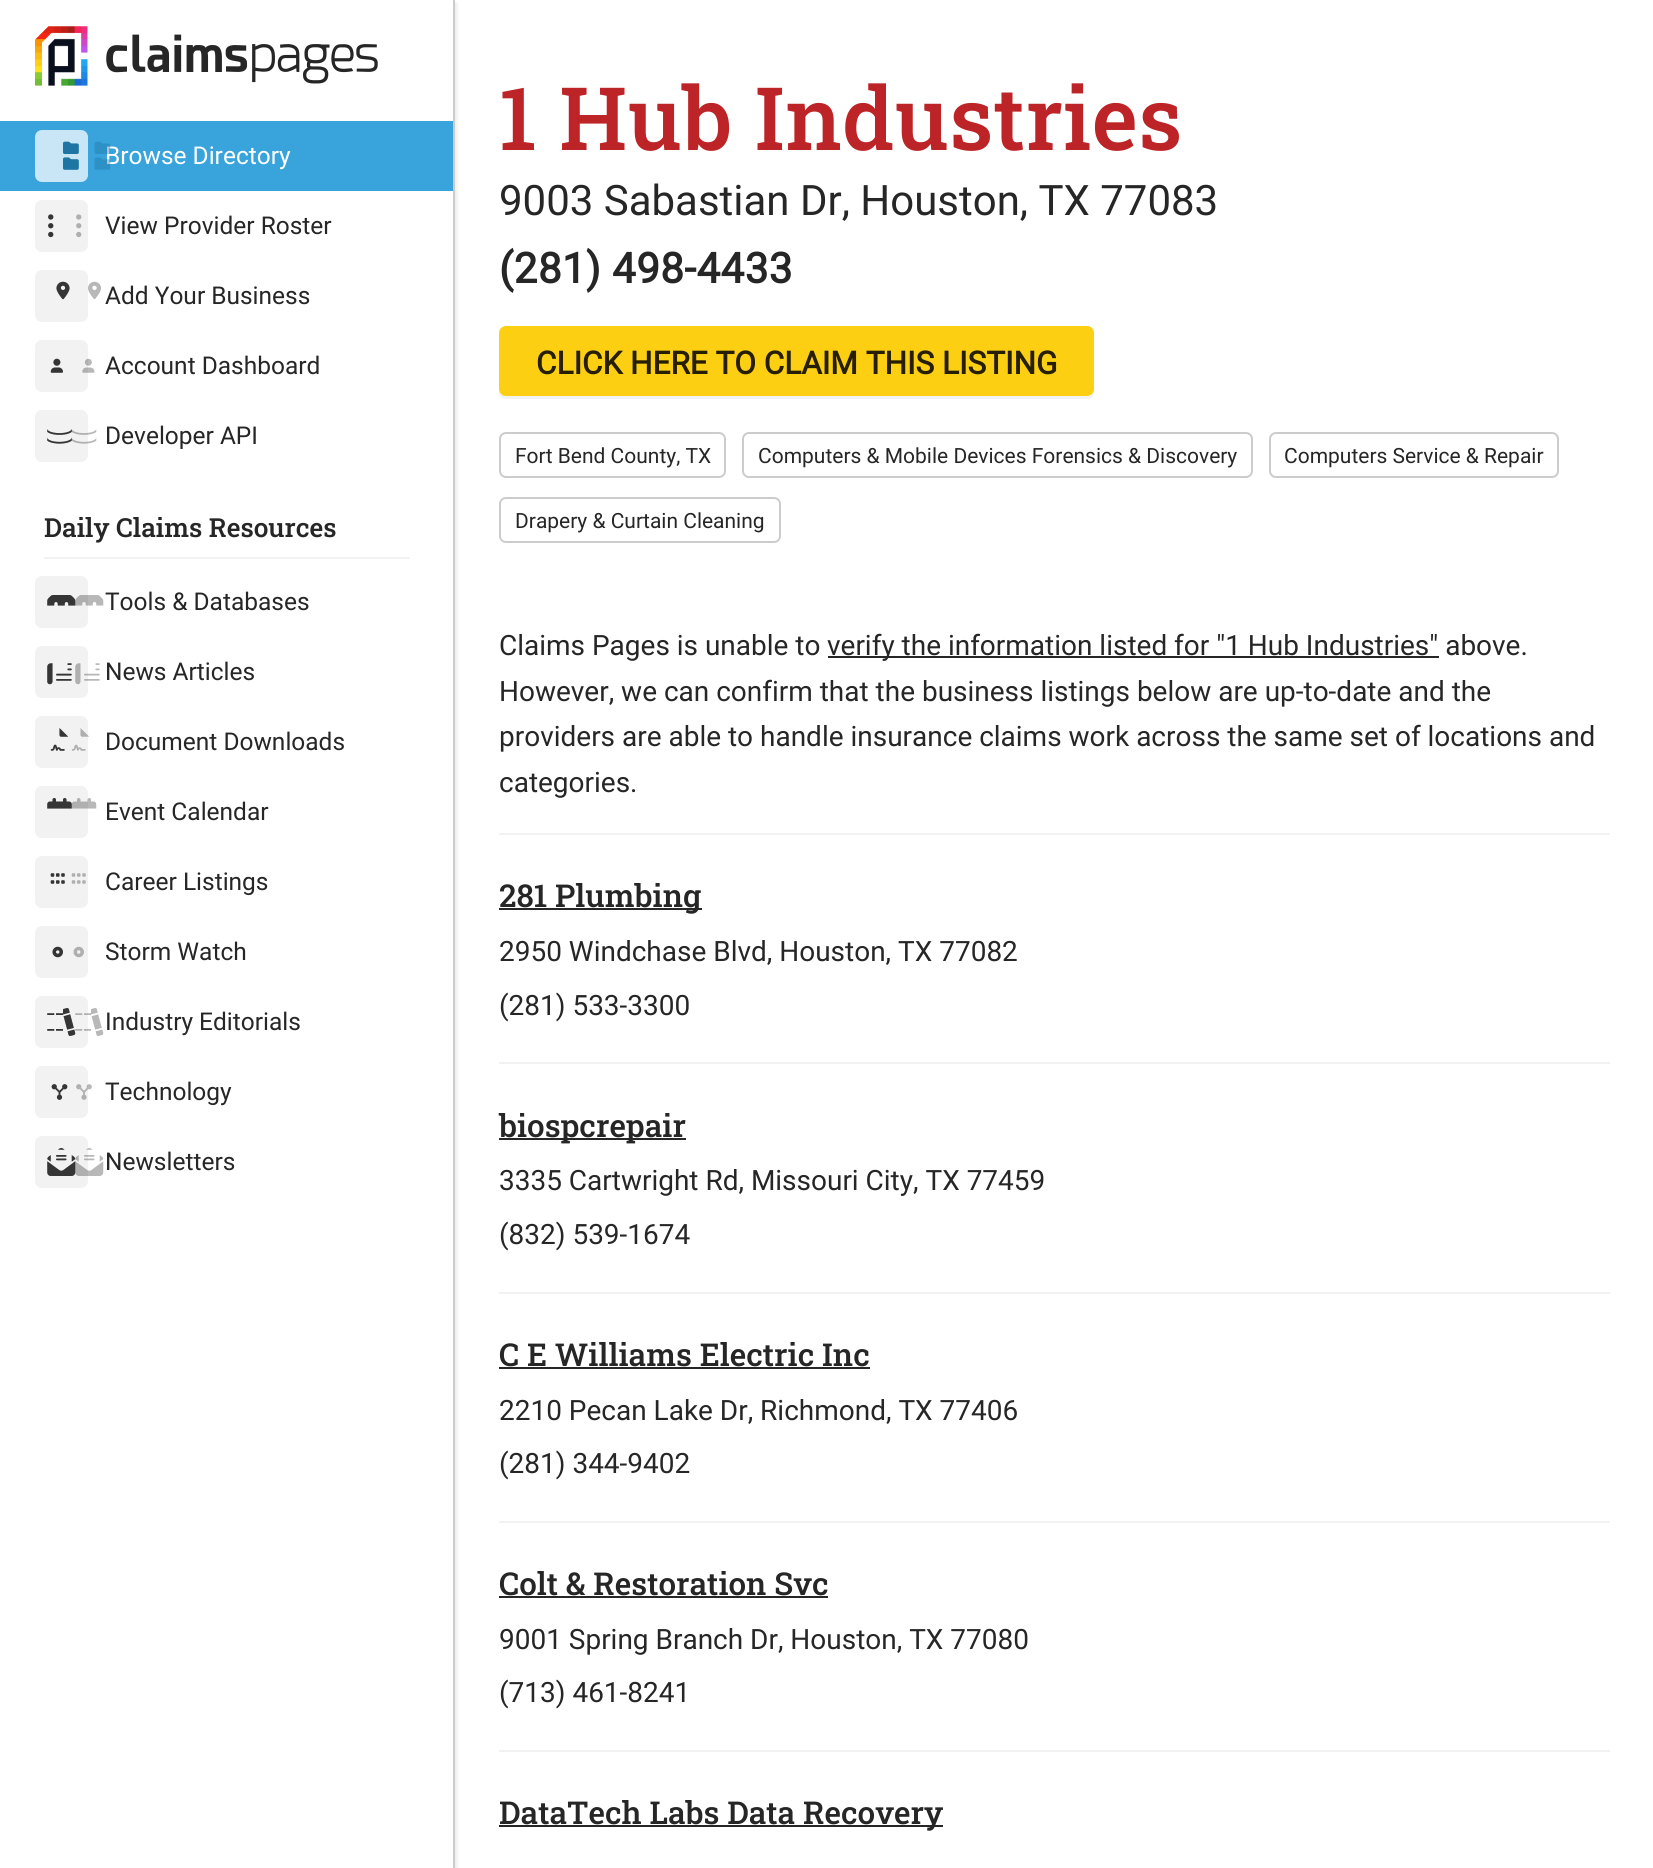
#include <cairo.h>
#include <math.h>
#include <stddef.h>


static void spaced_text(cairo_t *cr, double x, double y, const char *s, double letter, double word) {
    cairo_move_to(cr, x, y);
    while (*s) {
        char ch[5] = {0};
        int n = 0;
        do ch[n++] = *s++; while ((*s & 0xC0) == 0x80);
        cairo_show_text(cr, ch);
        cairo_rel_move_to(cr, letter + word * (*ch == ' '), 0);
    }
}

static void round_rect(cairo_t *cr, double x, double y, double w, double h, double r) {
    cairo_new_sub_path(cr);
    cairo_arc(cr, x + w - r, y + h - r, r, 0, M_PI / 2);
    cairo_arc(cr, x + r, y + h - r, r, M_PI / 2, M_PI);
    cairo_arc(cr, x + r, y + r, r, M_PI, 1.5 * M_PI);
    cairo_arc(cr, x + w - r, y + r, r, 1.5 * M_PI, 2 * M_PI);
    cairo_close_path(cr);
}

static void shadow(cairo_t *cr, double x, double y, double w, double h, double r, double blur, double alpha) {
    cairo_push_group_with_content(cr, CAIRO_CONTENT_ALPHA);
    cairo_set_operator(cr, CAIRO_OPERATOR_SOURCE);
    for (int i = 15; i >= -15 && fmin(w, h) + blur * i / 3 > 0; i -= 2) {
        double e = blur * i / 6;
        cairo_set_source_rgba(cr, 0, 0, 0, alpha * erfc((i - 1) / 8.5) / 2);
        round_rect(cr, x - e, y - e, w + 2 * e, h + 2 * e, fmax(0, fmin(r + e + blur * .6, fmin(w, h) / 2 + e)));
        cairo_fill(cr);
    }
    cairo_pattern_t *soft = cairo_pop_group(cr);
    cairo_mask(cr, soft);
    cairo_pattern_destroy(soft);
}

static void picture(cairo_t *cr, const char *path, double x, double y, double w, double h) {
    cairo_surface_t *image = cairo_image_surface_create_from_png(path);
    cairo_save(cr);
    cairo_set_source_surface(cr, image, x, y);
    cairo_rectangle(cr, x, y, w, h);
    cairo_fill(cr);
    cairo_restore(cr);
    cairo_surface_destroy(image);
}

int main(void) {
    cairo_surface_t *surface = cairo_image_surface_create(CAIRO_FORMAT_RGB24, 1653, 1868);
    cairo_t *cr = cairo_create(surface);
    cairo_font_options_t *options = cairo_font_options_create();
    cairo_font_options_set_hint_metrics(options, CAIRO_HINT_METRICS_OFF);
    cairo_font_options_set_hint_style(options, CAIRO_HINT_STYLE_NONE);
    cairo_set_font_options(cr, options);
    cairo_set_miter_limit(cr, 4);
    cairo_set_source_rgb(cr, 1, 1, 1);
    cairo_paint(cr);
    cairo_save(cr);
    cairo_rectangle(cr, 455, 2, 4, 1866);
    cairo_clip(cr);
    cairo_set_source_rgb(cr, 0, 0, 0);
    shadow(cr, 0, 4, 455, 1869, 0, 3.5, 0.15);
    cairo_restore(cr);
    cairo_set_source_rgb(cr, 0.8, 0.8, 0.8);
    cairo_rectangle(cr, 453, 0, 2, 1868);
    cairo_fill(cr);
    picture(cr, "img1.png", 35, 26, 53, 60);
    cairo_select_font_face(cr, "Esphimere", CAIRO_FONT_SLANT_NORMAL, CAIRO_FONT_WEIGHT_BOLD);
    cairo_set_font_size(cr, 49);
    cairo_set_source_rgb(cr, 0.149, 0.149, 0.149);
    cairo_move_to(cr, 105, 72);
    cairo_show_text(cr, "claims");
    cairo_select_font_face(cr, "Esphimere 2", CAIRO_FONT_SLANT_NORMAL, CAIRO_FONT_WEIGHT_BOLD);
    cairo_move_to(cr, 249, 72);
    cairo_show_text(cr, "pages");
    cairo_set_source_rgb(cr, 0.224, 0.643, 0.863);
    cairo_rectangle(cr, 0, 121, 453, 70);
    cairo_fill(cr);
    cairo_set_source_rgb(cr, 0.788, 0.902, 0.961);
    round_rect(cr, 35, 130, 53, 52, 7);
    cairo_fill(cr);
    picture(cr, "img2.png", 63, 141, 16, 29);
    cairo_select_font_face(cr, "Roboto", CAIRO_FONT_SLANT_NORMAL, CAIRO_FONT_WEIGHT_NORMAL);
    cairo_set_font_size(cr, 24.5);
    cairo_set_source_rgb(cr, 1, 1, 1);
    cairo_move_to(cr, 105, 164);
    cairo_show_text(cr, "Browse Directory");
    picture(cr, "img3.png", 63, 141, 48, 29);
    cairo_set_source_rgb(cr, 0.949, 0.949, 0.949);
    round_rect(cr, 35, 200, 53, 52, 7);
    cairo_fill(cr);
    picture(cr, "img4.png", 48, 214, 6, 24);
    picture(cr, "img5.png", 48, 214, 34, 24);
    cairo_set_source_rgb(cr, 0.149, 0.149, 0.149);
    cairo_move_to(cr, 105, 234);
    cairo_show_text(cr, "View Provider Roster");
    cairo_set_source_rgb(cr, 0.949, 0.949, 0.949);
    round_rect(cr, 35, 270, 53, 52, 7);
    cairo_fill(cr);
    picture(cr, "img6.png", 56, 281, 14, 19);
    picture(cr, "img7.png", 56, 281, 45, 19);
    cairo_set_source_rgb(cr, 0.149, 0.149, 0.149);
    cairo_move_to(cr, 105, 304);
    cairo_show_text(cr, "Add Your Business");
    cairo_set_source_rgb(cr, 0.949, 0.949, 0.949);
    round_rect(cr, 35, 340, 53, 52, 7);
    cairo_fill(cr);
    picture(cr, "img8.png", 50, 358, 13, 15);
    picture(cr, "img9.png", 50, 358, 45, 15);
    cairo_set_source_rgb(cr, 0.149, 0.149, 0.149);
    cairo_move_to(cr, 105, 374);
    cairo_show_text(cr, "Account Dashboard");
    cairo_set_source_rgb(cr, 0.949, 0.949, 0.949);
    round_rect(cr, 35, 410, 53, 52, 7);
    cairo_fill(cr);
    picture(cr, "img10.png", 47, 429, 25, 15);
    picture(cr, "img11.png", 47, 429, 50, 15);
    cairo_set_source_rgb(cr, 0.149, 0.149, 0.149);
    cairo_move_to(cr, 105, 444);
    cairo_show_text(cr, "Developer API");
    cairo_select_font_face(cr, "Roboto Slab Medium", CAIRO_FONT_SLANT_NORMAL, CAIRO_FONT_WEIGHT_NORMAL);
    cairo_set_font_size(cr, 26.25);
    cairo_move_to(cr, 44, 537);
    cairo_show_text(cr, "Daily Claims Resources");
    cairo_set_source_rgb(cr, 0.949, 0.949, 0.949);
    cairo_rectangle(cr, 44, 557, 366, 2);
    cairo_fill(cr);
    round_rect(cr, 35, 576, 53, 52, 7);
    cairo_fill(cr);
    picture(cr, "img12.png", 47, 595, 29, 11);
    picture(cr, "img13.png", 47, 595, 57, 11);
    cairo_select_font_face(cr, "Roboto", CAIRO_FONT_SLANT_NORMAL, CAIRO_FONT_WEIGHT_NORMAL);
    cairo_set_font_size(cr, 24.5);
    cairo_set_source_rgb(cr, 0.149, 0.149, 0.149);
    cairo_move_to(cr, 105, 610);
    cairo_show_text(cr, "Tools & Databases");
    cairo_set_source_rgb(cr, 0.949, 0.949, 0.949);
    round_rect(cr, 35, 646, 53, 52, 7);
    cairo_fill(cr);
    picture(cr, "img14.png", 47, 663, 25, 22);
    picture(cr, "img15.png", 47, 663, 53, 22);
    cairo_set_source_rgb(cr, 0.149, 0.149, 0.149);
    cairo_move_to(cr, 105, 680);
    cairo_show_text(cr, "News Articles");
    cairo_set_source_rgb(cr, 0.949, 0.949, 0.949);
    round_rect(cr, 35, 716, 53, 52, 7);
    cairo_fill(cr);
    picture(cr, "img16.png", 50, 728, 18, 23);
    picture(cr, "img17.png", 50, 728, 39, 23);
    cairo_set_source_rgb(cr, 0.149, 0.149, 0.149);
    cairo_move_to(cr, 105, 750);
    cairo_show_text(cr, "Document Downloads");
    cairo_set_source_rgb(cr, 0.949, 0.949, 0.949);
    round_rect(cr, 35, 786, 53, 52, 7);
    cairo_fill(cr);
    picture(cr, "img18.png", 47, 798, 25, 11);
    picture(cr, "img19.png", 47, 798, 50, 11);
    cairo_set_source_rgb(cr, 0.149, 0.149, 0.149);
    cairo_move_to(cr, 105, 820);
    cairo_show_text(cr, "Event Calendar");
    cairo_set_source_rgb(cr, 0.949, 0.949, 0.949);
    round_rect(cr, 35, 856, 53, 52, 7);
    cairo_fill(cr);
    picture(cr, "img20.png", 50, 873, 15, 11);
    picture(cr, "img21.png", 50, 873, 36, 11);
    cairo_set_source_rgb(cr, 0.149, 0.149, 0.149);
    cairo_move_to(cr, 105, 890);
    cairo_show_text(cr, "Career Listings");
    cairo_set_source_rgb(cr, 0.949, 0.949, 0.949);
    round_rect(cr, 35, 926, 53, 52, 7);
    cairo_fill(cr);
    picture(cr, "img22.png", 52, 946, 11, 12);
    picture(cr, "img23.png", 52, 946, 32, 12);
    cairo_set_source_rgb(cr, 0.149, 0.149, 0.149);
    cairo_move_to(cr, 105, 960);
    cairo_show_text(cr, "Storm Watch");
    cairo_set_source_rgb(cr, 0.949, 0.949, 0.949);
    round_rect(cr, 35, 996, 53, 52, 7);
    cairo_fill(cr);
    picture(cr, "img24.png", 47, 1008, 29, 28);
    picture(cr, "img25.png", 47, 1008, 57, 28);
    cairo_set_source_rgb(cr, 0.149, 0.149, 0.149);
    cairo_move_to(cr, 105, 1030);
    cairo_show_text(cr, "Industry Editorials");
    cairo_set_source_rgb(cr, 0.949, 0.949, 0.949);
    round_rect(cr, 35, 1066, 53, 52, 7);
    cairo_fill(cr);
    picture(cr, "img26.png", 51, 1084, 17, 16);
    picture(cr, "img27.png", 51, 1084, 41, 16);
    cairo_set_source_rgb(cr, 0.149, 0.149, 0.149);
    cairo_move_to(cr, 105, 1100);
    cairo_show_text(cr, "Technology");
    cairo_set_source_rgb(cr, 0.949, 0.949, 0.949);
    round_rect(cr, 35, 1136, 53, 52, 7);
    cairo_fill(cr);
    picture(cr, "img28.png", 47, 1148, 29, 28);
    picture(cr, "img29.png", 47, 1148, 57, 28);
    cairo_set_source_rgb(cr, 0.149, 0.149, 0.149);
    cairo_move_to(cr, 105, 1170);
    cairo_show_text(cr, "Newsletters");
    cairo_select_font_face(cr, "Roboto Slab Medium", CAIRO_FONT_SLANT_NORMAL, CAIRO_FONT_WEIGHT_NORMAL);
    cairo_set_font_size(cr, 87.5);
    cairo_set_source_rgb(cr, 0.741, 0.141, 0.153);
    spaced_text(cr, 499, 150, "1 Hub Industries", 0.5, 0);
    cairo_select_font_face(cr, "Roboto", CAIRO_FONT_SLANT_NORMAL, CAIRO_FONT_WEIGHT_NORMAL);
    cairo_set_font_size(cr, 42);
    cairo_set_source_rgb(cr, 0.149, 0.149, 0.149);
    cairo_move_to(cr, 499, 215);
    cairo_show_text(cr, "9003 Sabastian Dr, Houston, TX 77083");
    cairo_select_font_face(cr, "Roboto", CAIRO_FONT_SLANT_NORMAL, CAIRO_FONT_WEIGHT_BOLD);
    spaced_text(cr, 499, 283, "(281) 498-4433", 0.5, 0);
    cairo_set_source_rgb(cr, 0.949, 0.949, 0.949);
    cairo_new_path(cr);
    cairo_move_to(cr, 499, 390);
    cairo_line_to(cr, 499, 392);
    cairo_curve_to(cr, 499, 396, 502, 399, 506, 399);
    cairo_line_to(cr, 1087, 399);
    cairo_curve_to(cr, 1091, 399, 1094, 396, 1094, 392);
    cairo_line_to(cr, 1094, 334);
    cairo_line_to(cr, 1094, 388);
    cairo_curve_to(cr, 1094, 392, 1091, 396, 1087, 396);
    cairo_line_to(cr, 506, 396);
    cairo_curve_to(cr, 503, 396, 500, 393, 499, 390);
    cairo_close_path(cr);
    cairo_fill(cr);
    cairo_set_source_rgb(cr, 0.988, 0.812, 0.071);
    round_rect(cr, 499, 326, 595, 70, 7);
    cairo_fill(cr);
    cairo_set_font_size(cr, 31.5);
    cairo_set_source_rgb(cr, 0.149, 0.122, 0.012);
    cairo_move_to(cr, 536, 374);
    cairo_show_text(cr, "CLICK HERE TO CLAIM THIS LISTING");
    round_rect(cr, 500, 433, 225, 44, 6);
    cairo_set_source_rgb(cr, 0.8, 0.8, 0.8);
    cairo_stroke(cr);
    cairo_select_font_face(cr, "Roboto", CAIRO_FONT_SLANT_NORMAL, CAIRO_FONT_WEIGHT_NORMAL);
    cairo_set_font_size(cr, 21);
    cairo_set_source_rgb(cr, 0.149, 0.149, 0.149);
    cairo_move_to(cr, 515, 463);
    cairo_show_text(cr, "Fort Bend County, TX");
    round_rect(cr, 743, 433, 509, 44, 6);
    cairo_set_source_rgb(cr, 0.8, 0.8, 0.8);
    cairo_stroke(cr);
    cairo_set_source_rgb(cr, 0.149, 0.149, 0.149);
    cairo_move_to(cr, 758, 463);
    cairo_show_text(cr, "Computers & Mobile Devices Forensics & Discovery");
    round_rect(cr, 1270, 433, 288, 44, 6);
    cairo_set_source_rgb(cr, 0.8, 0.8, 0.8);
    cairo_stroke(cr);
    cairo_set_source_rgb(cr, 0.149, 0.149, 0.149);
    cairo_move_to(cr, 1284, 463);
    cairo_show_text(cr, "Computers Service & Repair");
    round_rect(cr, 500, 498, 280, 44, 6);
    cairo_set_source_rgb(cr, 0.8, 0.8, 0.8);
    cairo_stroke(cr);
    cairo_set_source_rgb(cr, 0.149, 0.149, 0.149);
    cairo_move_to(cr, 515, 528);
    cairo_show_text(cr, "Drapery & Curtain Cleaning");
    cairo_set_font_size(cr, 28);
    cairo_move_to(cr, 499, 655);
    cairo_show_text(cr, "Claims Pages is unable to");
    cairo_rectangle(cr, 828, 656, 611, 2);
    cairo_fill(cr);
    cairo_move_to(cr, 827, 655);
    cairo_show_text(cr, "verify the information listed for \"1 Hub Industries\" above.");
    cairo_move_to(cr, 499, 701);
    cairo_show_text(cr, "However, we can confirm that the business listings below are up-to-date and the");
    cairo_move_to(cr, 499, 746);
    cairo_show_text(cr, "providers are able to handle insurance claims work across the same set of locations and");
    cairo_move_to(cr, 499, 792);
    cairo_show_text(cr, "categories.");
    cairo_set_source_rgb(cr, 0.949, 0.949, 0.949);
    cairo_rectangle(cr, 499, 833, 1111, 2);
    cairo_fill(cr);
    cairo_set_source_rgb(cr, 0.149, 0.149, 0.149);
    cairo_rectangle(cr, 499, 908, 203, 2);
    cairo_fill(cr);
    cairo_select_font_face(cr, "Roboto Slab Medium", CAIRO_FONT_SLANT_NORMAL, CAIRO_FONT_WEIGHT_NORMAL);
    cairo_set_font_size(cr, 31.5);
    cairo_move_to(cr, 499, 907);
    cairo_show_text(cr, "281 Plumbing");
    cairo_select_font_face(cr, "Roboto", CAIRO_FONT_SLANT_NORMAL, CAIRO_FONT_WEIGHT_NORMAL);
    cairo_set_font_size(cr, 28);
    cairo_move_to(cr, 499, 961);
    cairo_show_text(cr, "2950 Windchase Blvd, Houston, TX 77082");
    cairo_move_to(cr, 499, 1015);
    cairo_show_text(cr, "(281) 533-3300");
    cairo_set_source_rgb(cr, 0.949, 0.949, 0.949);
    cairo_rectangle(cr, 499, 1062, 1111, 2);
    cairo_fill(cr);
    cairo_set_source_rgb(cr, 0.149, 0.149, 0.149);
    cairo_rectangle(cr, 499, 1138, 187, 2);
    cairo_fill(cr);
    cairo_select_font_face(cr, "Roboto Slab Medium", CAIRO_FONT_SLANT_NORMAL, CAIRO_FONT_WEIGHT_NORMAL);
    cairo_set_font_size(cr, 31.5);
    cairo_move_to(cr, 499, 1137);
    cairo_show_text(cr, "biospcrepair");
    cairo_select_font_face(cr, "Roboto", CAIRO_FONT_SLANT_NORMAL, CAIRO_FONT_WEIGHT_NORMAL);
    cairo_set_font_size(cr, 28);
    cairo_move_to(cr, 499, 1190);
    cairo_show_text(cr, "3335 Cartwright Rd, Missouri City, TX 77459");
    cairo_move_to(cr, 499, 1244);
    cairo_show_text(cr, "(832) 539-1674");
    cairo_set_source_rgb(cr, 0.949, 0.949, 0.949);
    cairo_rectangle(cr, 499, 1292, 1111, 2);
    cairo_fill(cr);
    cairo_select_font_face(cr, "Roboto Slab Medium", CAIRO_FONT_SLANT_NORMAL, CAIRO_FONT_WEIGHT_NORMAL);
    cairo_set_font_size(cr, 31.5);
    cairo_set_source_rgb(cr, 0.149, 0.149, 0.149);
    cairo_move_to(cr, 499, 1366);
    cairo_show_text(cr, "C E Williams Electric Inc");
    cairo_rectangle(cr, 499, 1367, 371, 2);
    cairo_fill(cr);
    cairo_select_font_face(cr, "Roboto", CAIRO_FONT_SLANT_NORMAL, CAIRO_FONT_WEIGHT_NORMAL);
    cairo_set_font_size(cr, 28);
    cairo_move_to(cr, 499, 1420);
    cairo_show_text(cr, "2210 Pecan Lake Dr, Richmond, TX 77406");
    cairo_move_to(cr, 499, 1473);
    cairo_show_text(cr, "(281) 344-9402");
    cairo_set_source_rgb(cr, 0.949, 0.949, 0.949);
    cairo_rectangle(cr, 499, 1521, 1111, 2);
    cairo_fill(cr);
    cairo_select_font_face(cr, "Roboto Slab Medium", CAIRO_FONT_SLANT_NORMAL, CAIRO_FONT_WEIGHT_NORMAL);
    cairo_set_font_size(cr, 31.5);
    cairo_set_source_rgb(cr, 0.149, 0.149, 0.149);
    cairo_move_to(cr, 499, 1595);
    cairo_show_text(cr, "Colt & Restoration Svc");
    cairo_rectangle(cr, 499, 1596, 329, 2);
    cairo_fill(cr);
    cairo_select_font_face(cr, "Roboto", CAIRO_FONT_SLANT_NORMAL, CAIRO_FONT_WEIGHT_NORMAL);
    cairo_set_font_size(cr, 28);
    cairo_move_to(cr, 499, 1649);
    cairo_show_text(cr, "9001 Spring Branch Dr, Houston, TX 77080");
    cairo_move_to(cr, 499, 1702);
    cairo_show_text(cr, "(713) 461-8241");
    cairo_set_source_rgb(cr, 0.949, 0.949, 0.949);
    cairo_rectangle(cr, 499, 1750, 1111, 2);
    cairo_fill(cr);
    cairo_set_source_rgb(cr, 0.149, 0.149, 0.149);
    cairo_rectangle(cr, 499, 1825, 444, 2);
    cairo_fill(cr);
    cairo_select_font_face(cr, "Roboto Slab Medium", CAIRO_FONT_SLANT_NORMAL, CAIRO_FONT_WEIGHT_NORMAL);
    cairo_set_font_size(cr, 31.5);
    cairo_move_to(cr, 499, 1824);
    cairo_show_text(cr, "DataTech Labs Data Recovery");
    cairo_surface_write_to_png(surface, "page.png");
    cairo_font_options_destroy(options);
    cairo_destroy(cr);
    cairo_surface_destroy(surface);
    return 0;
}
